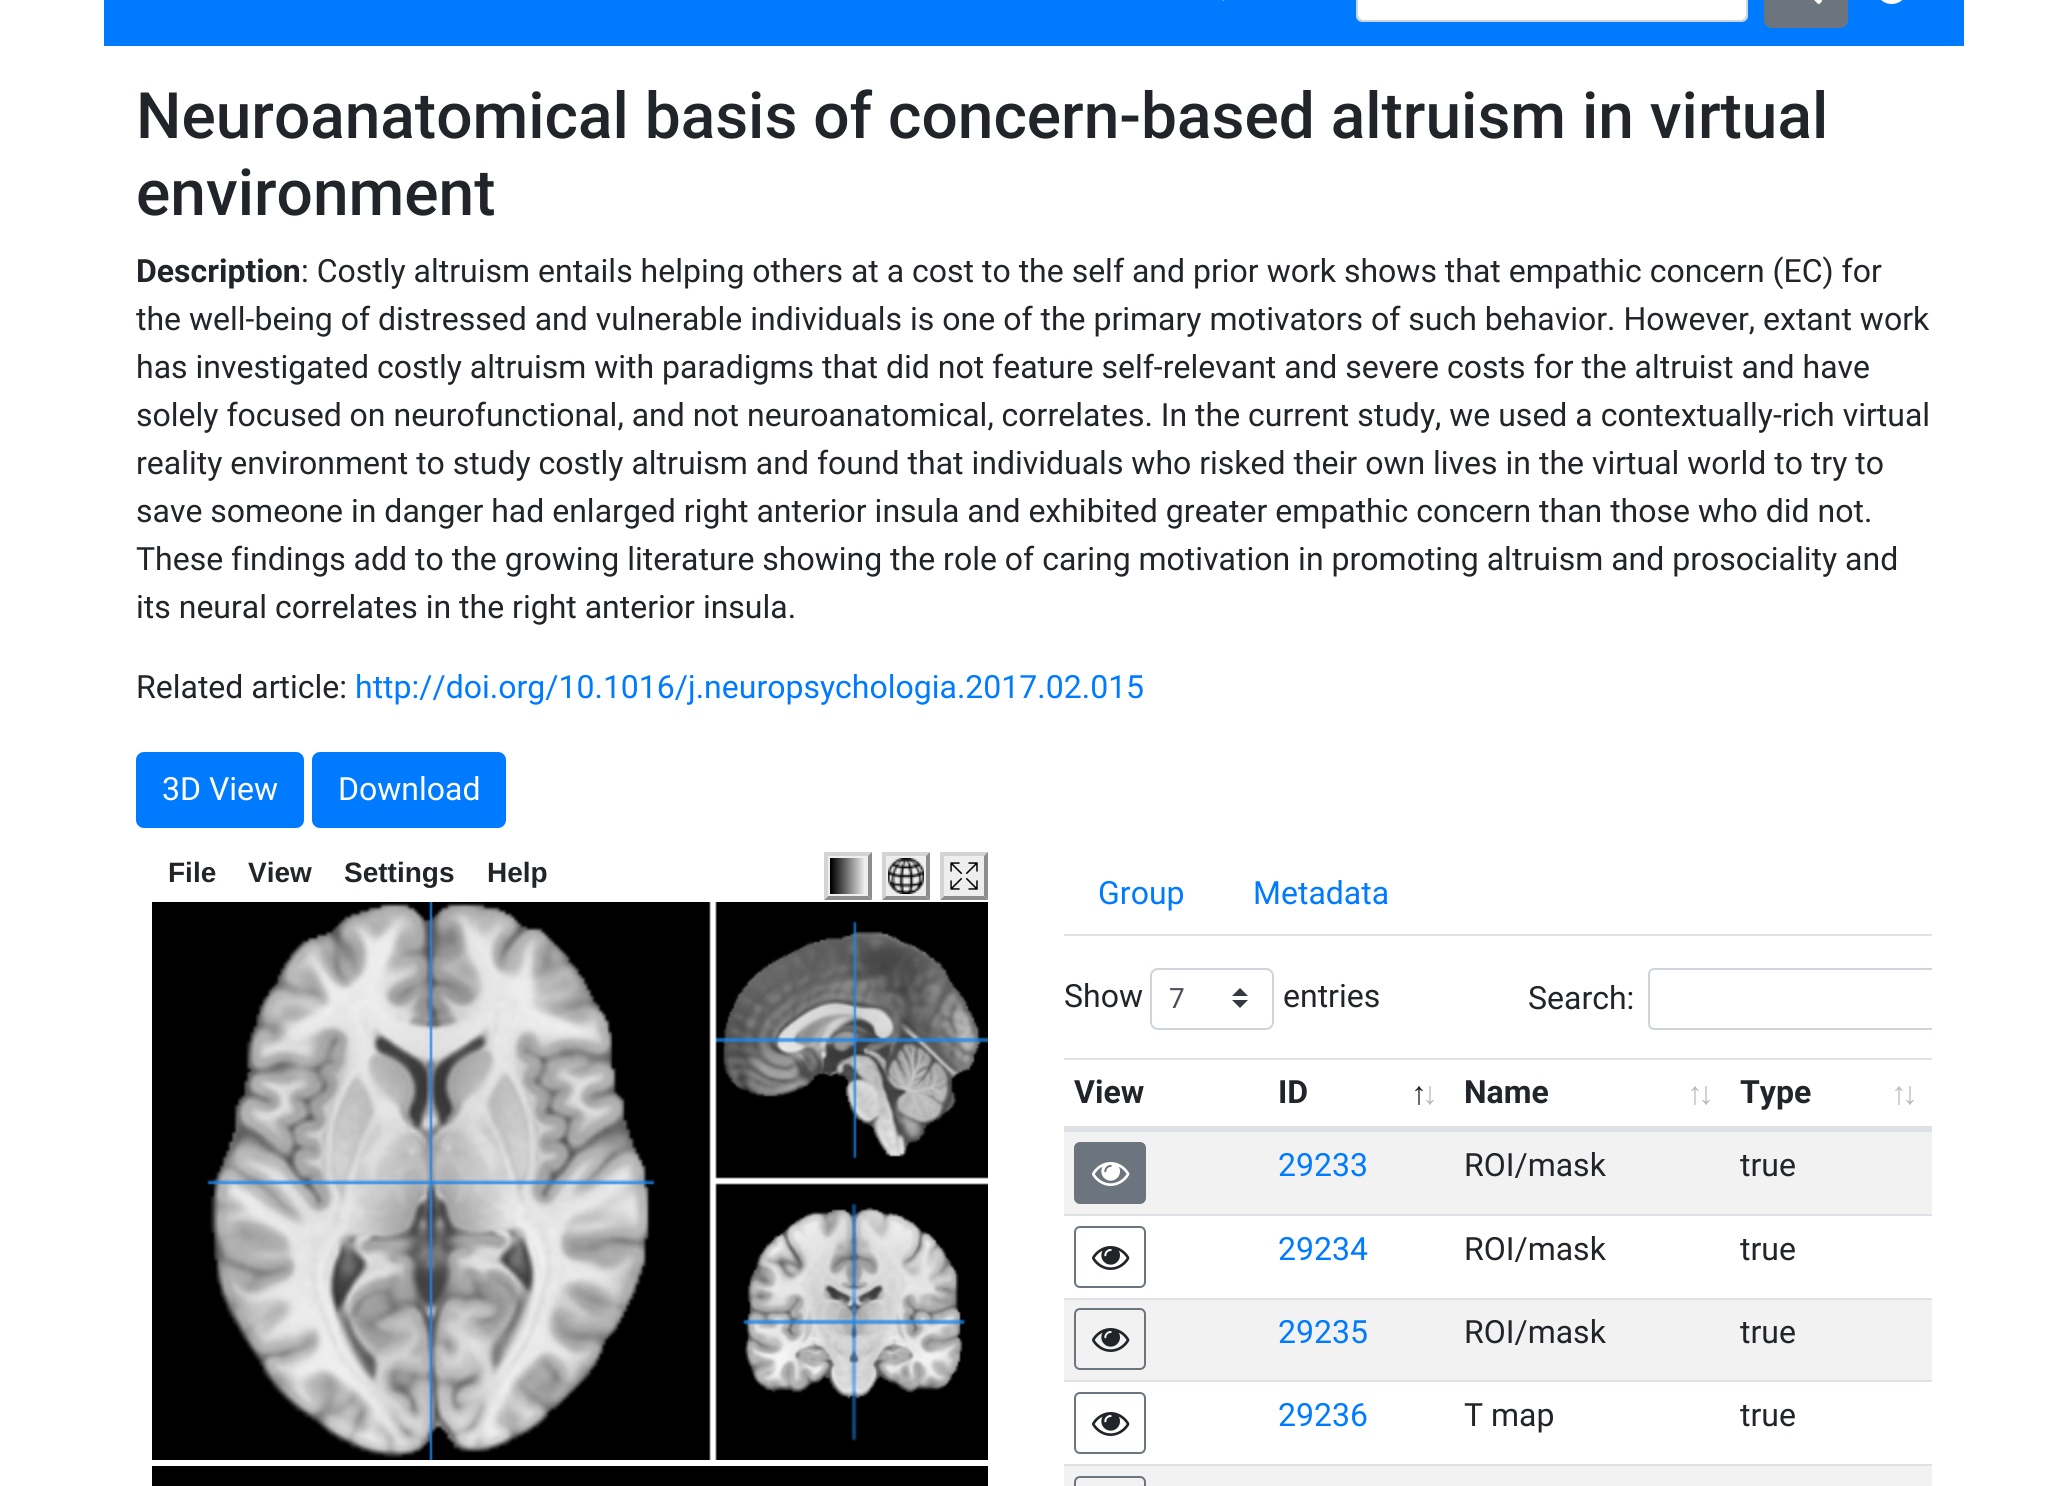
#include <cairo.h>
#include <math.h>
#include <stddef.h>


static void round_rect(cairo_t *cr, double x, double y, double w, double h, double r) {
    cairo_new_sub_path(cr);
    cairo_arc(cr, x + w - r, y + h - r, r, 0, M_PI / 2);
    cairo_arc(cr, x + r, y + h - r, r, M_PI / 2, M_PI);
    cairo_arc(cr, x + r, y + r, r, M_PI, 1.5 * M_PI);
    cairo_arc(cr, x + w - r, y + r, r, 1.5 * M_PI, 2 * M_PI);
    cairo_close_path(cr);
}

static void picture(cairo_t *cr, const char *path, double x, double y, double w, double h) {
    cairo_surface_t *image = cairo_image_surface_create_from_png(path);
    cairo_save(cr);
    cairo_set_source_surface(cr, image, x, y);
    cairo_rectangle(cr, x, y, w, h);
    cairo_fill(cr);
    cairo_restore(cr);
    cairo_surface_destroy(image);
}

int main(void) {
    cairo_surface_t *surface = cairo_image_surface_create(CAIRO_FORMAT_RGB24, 2068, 1486);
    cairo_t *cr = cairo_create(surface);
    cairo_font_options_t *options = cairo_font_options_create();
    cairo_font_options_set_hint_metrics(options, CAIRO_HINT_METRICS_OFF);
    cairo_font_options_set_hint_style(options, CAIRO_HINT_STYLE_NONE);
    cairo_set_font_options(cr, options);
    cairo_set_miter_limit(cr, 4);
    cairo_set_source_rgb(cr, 1, 1, 1);
    cairo_paint(cr);
    cairo_set_source_rgb(cr, 0, 0.482, 1);
    cairo_rectangle(cr, 104, 0, 1860, 46);
    cairo_fill(cr);
    picture(cr, "img1.png", 1222, 0, 3, 1);
    cairo_set_source_rgb(cr, 1, 1, 1);
    round_rect(cr, 1358, -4, 388, 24, 4);
    cairo_fill(cr);
    round_rect(cr, 1357, -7, 390, 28, 5);
    cairo_set_source_rgb(cr, 0.808, 0.831, 0.855);
    cairo_stroke(cr);
    cairo_set_source_rgb(cr, 0.424, 0.459, 0.49);
    round_rect(cr, 1765, -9, 82, 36, 7);
    cairo_fill_preserve(cr);
    cairo_stroke(cr);
    picture(cr, "img2.png", 1814, 0, 8, 4);
    picture(cr, "img3.png", 1881, 0, 22, 4);
    cairo_select_font_face(cr, "Roboto Medium", CAIRO_FONT_SLANT_NORMAL, CAIRO_FONT_WEIGHT_NORMAL);
    cairo_set_font_size(cr, 64);
    cairo_set_source_rgb(cr, 0.129, 0.145, 0.161);
    cairo_move_to(cr, 136, 138);
    cairo_show_text(cr, "Neuroanatomical basis of concern-based altruism in virtual");
    cairo_move_to(cr, 136, 215);
    cairo_show_text(cr, "environment");
    cairo_select_font_face(cr, "Roboto", CAIRO_FONT_SLANT_NORMAL, CAIRO_FONT_WEIGHT_BOLD);
    cairo_set_font_size(cr, 32);
    cairo_move_to(cr, 136, 282);
    cairo_show_text(cr, "Description");
    cairo_select_font_face(cr, "Roboto", CAIRO_FONT_SLANT_NORMAL, CAIRO_FONT_WEIGHT_NORMAL);
    cairo_move_to(cr, 301, 282);
    cairo_show_text(cr, ": Costly altruism entails helping others at a cost to the self and prior work shows that empathic concern (EC) for");
    cairo_move_to(cr, 136, 330);
    cairo_show_text(cr, "the well-being of distressed and vulnerable individuals is one of the primary motivators of such behavior. However, extant work");
    cairo_move_to(cr, 136, 378);
    cairo_show_text(cr, "has investigated costly altruism with paradigms that did not feature self-relevant and severe costs for the altruist and have");
    cairo_move_to(cr, 136, 426);
    cairo_show_text(cr, "solely focused on neurofunctional, and not neuroanatomical, correlates. In the current study, we used a contextually-rich virtual");
    cairo_move_to(cr, 136, 474);
    cairo_show_text(cr, "reality environment to study costly altruism and found that individuals who risked their own lives in the virtual world to try to");
    cairo_move_to(cr, 136, 522);
    cairo_show_text(cr, "save someone in danger had enlarged right anterior insula and exhibited greater empathic concern than those who did not.");
    cairo_move_to(cr, 136, 570);
    cairo_show_text(cr, "These findings add to the growing literature showing the role of caring motivation in promoting altruism and prosociality and");
    cairo_move_to(cr, 136, 618);
    cairo_show_text(cr, "its neural correlates in the right anterior insula.");
    cairo_move_to(cr, 136, 698);
    cairo_show_text(cr, "Related article:");
    cairo_set_source_rgb(cr, 0, 0.482, 1);
    cairo_move_to(cr, 355, 698);
    cairo_show_text(cr, "http://doi.org/10.1016/j.neuropsychologia.2017.02.015");
    round_rect(cr, 137, 753, 166, 74, 7);
    cairo_fill_preserve(cr);
    cairo_stroke(cr);
    cairo_set_source_rgb(cr, 1, 1, 1);
    cairo_move_to(cr, 162, 800);
    cairo_show_text(cr, "3D View");
    cairo_set_source_rgb(cr, 0, 0.482, 1);
    round_rect(cr, 313, 753, 192, 74, 7);
    cairo_fill_preserve(cr);
    cairo_stroke(cr);
    cairo_set_source_rgb(cr, 1, 1, 1);
    cairo_move_to(cr, 338, 800);
    cairo_show_text(cr, "Download");
    cairo_select_font_face(cr, "Liberation Sans", CAIRO_FONT_SLANT_NORMAL, CAIRO_FONT_WEIGHT_BOLD);
    cairo_set_font_size(cr, 28);
    cairo_set_source_rgb(cr, 0.129, 0.145, 0.161);
    cairo_move_to(cr, 168, 882);
    cairo_show_text(cr, "File");
    cairo_move_to(cr, 248, 882);
    cairo_show_text(cr, "View");
    cairo_move_to(cr, 344, 882);
    cairo_show_text(cr, "Settings");
    cairo_move_to(cr, 487, 882);
    cairo_show_text(cr, "Help");
    cairo_set_source_rgb(cr, 0.933, 0.933, 0.933);
    cairo_rectangle(cr, 824, 852, 48, 48);
    cairo_fill(cr);
    cairo_set_source_rgb(cr, 0.827, 0.827, 0.827);
    cairo_new_path(cr);
    cairo_move_to(cr, 824, 852);
    cairo_line_to(cr, 872, 852);
    cairo_line_to(cr, 868, 856);
    cairo_line_to(cr, 828, 856);
    cairo_close_path(cr);
    cairo_fill(cr);
    cairo_set_source_rgb(cr, 0.553, 0.553, 0.553);
    cairo_new_path(cr);
    cairo_move_to(cr, 872, 852);
    cairo_line_to(cr, 872, 900);
    cairo_line_to(cr, 868, 896);
    cairo_line_to(cr, 868, 856);
    cairo_close_path(cr);
    cairo_fill(cr);
    cairo_new_path(cr);
    cairo_move_to(cr, 872, 900);
    cairo_line_to(cr, 824, 900);
    cairo_line_to(cr, 828, 896);
    cairo_line_to(cr, 868, 896);
    cairo_close_path(cr);
    cairo_fill(cr);
    cairo_set_source_rgb(cr, 0.827, 0.827, 0.827);
    cairo_new_path(cr);
    cairo_move_to(cr, 824, 900);
    cairo_line_to(cr, 824, 852);
    cairo_line_to(cr, 828, 856);
    cairo_line_to(cr, 828, 896);
    cairo_close_path(cr);
    cairo_fill(cr);
    picture(cr, "img4.png", 830, 858, 34, 36);
    cairo_set_source_rgb(cr, 0.933, 0.933, 0.933);
    cairo_rectangle(cr, 882, 852, 48, 48);
    cairo_fill(cr);
    cairo_set_source_rgb(cr, 0.827, 0.827, 0.827);
    cairo_new_path(cr);
    cairo_move_to(cr, 882, 852);
    cairo_line_to(cr, 930, 852);
    cairo_line_to(cr, 926, 856);
    cairo_line_to(cr, 886, 856);
    cairo_close_path(cr);
    cairo_fill(cr);
    cairo_set_source_rgb(cr, 0.553, 0.553, 0.553);
    cairo_new_path(cr);
    cairo_move_to(cr, 930, 852);
    cairo_line_to(cr, 930, 900);
    cairo_line_to(cr, 926, 896);
    cairo_line_to(cr, 926, 856);
    cairo_close_path(cr);
    cairo_fill(cr);
    cairo_new_path(cr);
    cairo_move_to(cr, 930, 900);
    cairo_line_to(cr, 882, 900);
    cairo_line_to(cr, 886, 896);
    cairo_line_to(cr, 926, 896);
    cairo_close_path(cr);
    cairo_fill(cr);
    cairo_set_source_rgb(cr, 0.827, 0.827, 0.827);
    cairo_new_path(cr);
    cairo_move_to(cr, 882, 900);
    cairo_line_to(cr, 882, 852);
    cairo_line_to(cr, 886, 856);
    cairo_line_to(cr, 886, 896);
    cairo_close_path(cr);
    cairo_fill(cr);
    picture(cr, "img5.png", 888, 858, 36, 36);
    cairo_set_source_rgb(cr, 0.933, 0.933, 0.933);
    cairo_rectangle(cr, 940, 852, 48, 48);
    cairo_fill(cr);
    cairo_set_source_rgb(cr, 0.827, 0.827, 0.827);
    cairo_new_path(cr);
    cairo_move_to(cr, 940, 852);
    cairo_line_to(cr, 988, 852);
    cairo_line_to(cr, 984, 856);
    cairo_line_to(cr, 944, 856);
    cairo_close_path(cr);
    cairo_fill(cr);
    cairo_set_source_rgb(cr, 0.553, 0.553, 0.553);
    cairo_new_path(cr);
    cairo_move_to(cr, 988, 852);
    cairo_line_to(cr, 988, 900);
    cairo_line_to(cr, 984, 896);
    cairo_line_to(cr, 984, 856);
    cairo_close_path(cr);
    cairo_fill(cr);
    cairo_new_path(cr);
    cairo_move_to(cr, 988, 900);
    cairo_line_to(cr, 940, 900);
    cairo_line_to(cr, 944, 896);
    cairo_line_to(cr, 984, 896);
    cairo_close_path(cr);
    cairo_fill(cr);
    cairo_set_source_rgb(cr, 0.827, 0.827, 0.827);
    cairo_new_path(cr);
    cairo_move_to(cr, 940, 900);
    cairo_line_to(cr, 940, 852);
    cairo_line_to(cr, 944, 856);
    cairo_line_to(cr, 944, 896);
    cairo_close_path(cr);
    cairo_fill(cr);
    picture(cr, "img6.png", 950, 862, 28, 28);
    picture(cr, "img7.png", 152, 902, 836, 558);
    cairo_set_source_rgb(cr, 0, 0, 0);
    cairo_rectangle(cr, 152, 1466, 836, 20);
    cairo_fill(cr);
    cairo_set_source_rgb(cr, 0.871, 0.886, 0.902);
    cairo_rectangle(cr, 1064, 934, 868, 2);
    cairo_fill(cr);
    cairo_select_font_face(cr, "Roboto", CAIRO_FONT_SLANT_NORMAL, CAIRO_FONT_WEIGHT_NORMAL);
    cairo_set_font_size(cr, 32);
    cairo_set_source_rgb(cr, 0, 0.482, 1);
    cairo_move_to(cr, 1098, 904);
    cairo_show_text(cr, "Group");
    cairo_move_to(cr, 1253, 904);
    cairo_show_text(cr, "Metadata");
    cairo_set_source_rgb(cr, 0.129, 0.145, 0.161);
    cairo_move_to(cr, 1064, 1007);
    cairo_show_text(cr, "Show");
    cairo_set_source_rgb(cr, 0.204, 0.227, 0.251);
    cairo_new_path(cr);
    cairo_move_to(cr, 1240, 988);
    cairo_line_to(cr, 1232, 996);
    cairo_line_to(cr, 1248, 996);
    cairo_close_path(cr);
    cairo_move_to(cr, 1240, 1008);
    cairo_line_to(cr, 1232, 1000);
    cairo_line_to(cr, 1248, 1000);
    cairo_close_path(cr);
    cairo_fill(cr);
    round_rect(cr, 1151, 969, 122, 60, 7);
    cairo_set_source_rgb(cr, 0.808, 0.831, 0.855);
    cairo_stroke(cr);
    cairo_set_font_size(cr, 28);
    cairo_set_source_rgb(cr, 0.286, 0.314, 0.341);
    cairo_move_to(cr, 1169, 1008);
    cairo_show_text(cr, "7");
    cairo_set_font_size(cr, 32);
    cairo_set_source_rgb(cr, 0.129, 0.145, 0.161);
    cairo_move_to(cr, 1283, 1007);
    cairo_show_text(cr, "entries");
    cairo_move_to(cr, 1528, 1009);
    cairo_show_text(cr, "Search:");
    cairo_save(cr);
    cairo_rectangle(cr, 1064, 968, 868, 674);
    cairo_clip(cr);
    round_rect(cr, 1649, 969, 390, 60, 5);
    cairo_set_source_rgb(cr, 0.808, 0.831, 0.855);
    cairo_stroke(cr);
    cairo_restore(cr);
    cairo_set_source_rgb(cr, 0.871, 0.886, 0.902);
    cairo_rectangle(cr, 1064, 1058, 868, 2);
    cairo_fill(cr);
    cairo_rectangle(cr, 1064, 1126, 204, 6);
    cairo_fill(cr);
    cairo_select_font_face(cr, "Roboto", CAIRO_FONT_SLANT_NORMAL, CAIRO_FONT_WEIGHT_BOLD);
    cairo_set_source_rgb(cr, 0.129, 0.145, 0.161);
    cairo_move_to(cr, 1074, 1103);
    cairo_show_text(cr, "View");
    cairo_set_source_rgb(cr, 0.871, 0.886, 0.902);
    cairo_rectangle(cr, 1268, 1126, 664, 4);
    cairo_fill(cr);
    cairo_set_source_rgb(cr, 0.129, 0.145, 0.161);
    cairo_move_to(cr, 1278, 1103);
    cairo_show_text(cr, "ID");
    cairo_select_font_face(cr, "Liberation Sans", CAIRO_FONT_SLANT_NORMAL, CAIRO_FONT_WEIGHT_BOLD);
    cairo_move_to(cr, 1411, 1104);
    cairo_show_text(cr, "↑");
    cairo_set_source_rgb(cr, 0.737, 0.745, 0.749);
    cairo_move_to(cr, 1422, 1104);
    cairo_show_text(cr, "↓");
    cairo_select_font_face(cr, "Roboto", CAIRO_FONT_SLANT_NORMAL, CAIRO_FONT_WEIGHT_BOLD);
    cairo_set_source_rgb(cr, 0.129, 0.145, 0.161);
    cairo_move_to(cr, 1464, 1103);
    cairo_show_text(cr, "Name");
    cairo_select_font_face(cr, "Liberation Sans", CAIRO_FONT_SLANT_NORMAL, CAIRO_FONT_WEIGHT_BOLD);
    cairo_set_source_rgb(cr, 0.737, 0.745, 0.749);
    cairo_move_to(cr, 1687, 1104);
    cairo_show_text(cr, "↑");
    cairo_move_to(cr, 1698, 1104);
    cairo_show_text(cr, "↓");
    cairo_select_font_face(cr, "Roboto", CAIRO_FONT_SLANT_NORMAL, CAIRO_FONT_WEIGHT_BOLD);
    cairo_set_source_rgb(cr, 0.129, 0.145, 0.161);
    cairo_move_to(cr, 1740, 1103);
    cairo_show_text(cr, "Type");
    cairo_select_font_face(cr, "Liberation Sans", CAIRO_FONT_SLANT_NORMAL, CAIRO_FONT_WEIGHT_BOLD);
    cairo_set_source_rgb(cr, 0.737, 0.745, 0.749);
    cairo_move_to(cr, 1891, 1104);
    cairo_show_text(cr, "↑");
    cairo_move_to(cr, 1902, 1104);
    cairo_show_text(cr, "↓");
    cairo_set_source_rgb(cr, 0.949, 0.949, 0.949);
    cairo_rectangle(cr, 1064, 1132, 868, 82);
    cairo_fill(cr);
    cairo_set_source_rgb(cr, 0.424, 0.459, 0.49);
    round_rect(cr, 1075, 1143, 70, 60, 5);
    cairo_fill_preserve(cr);
    cairo_stroke(cr);
    picture(cr, "img8.png", 1092, 1162, 38, 24);
    cairo_set_source_rgb(cr, 0.871, 0.886, 0.902);
    cairo_rectangle(cr, 1268, 1130, 664, 2);
    cairo_fill(cr);
    cairo_select_font_face(cr, "Roboto", CAIRO_FONT_SLANT_NORMAL, CAIRO_FONT_WEIGHT_NORMAL);
    cairo_set_source_rgb(cr, 0, 0.482, 1);
    cairo_move_to(cr, 1278, 1176);
    cairo_show_text(cr, "29233");
    cairo_set_source_rgb(cr, 0.129, 0.145, 0.161);
    cairo_move_to(cr, 1464, 1176);
    cairo_show_text(cr, "ROI/mask");
    cairo_move_to(cr, 1740, 1176);
    cairo_show_text(cr, "true");
    cairo_set_source_rgb(cr, 0.871, 0.886, 0.902);
    cairo_rectangle(cr, 1064, 1214, 868, 2);
    cairo_fill(cr);
    round_rect(cr, 1075, 1227, 70, 60, 5);
    cairo_set_source_rgb(cr, 0.424, 0.459, 0.49);
    cairo_stroke(cr);
    picture(cr, "img9.png", 1092, 1246, 38, 24);
    cairo_set_source_rgb(cr, 0, 0.482, 1);
    cairo_move_to(cr, 1278, 1260);
    cairo_show_text(cr, "29234");
    cairo_set_source_rgb(cr, 0.129, 0.145, 0.161);
    cairo_move_to(cr, 1464, 1260);
    cairo_show_text(cr, "ROI/mask");
    cairo_move_to(cr, 1740, 1260);
    cairo_show_text(cr, "true");
    cairo_set_source_rgb(cr, 0.949, 0.949, 0.949);
    cairo_rectangle(cr, 1064, 1300, 868, 80);
    cairo_fill(cr);
    cairo_set_source_rgb(cr, 0.871, 0.886, 0.902);
    cairo_rectangle(cr, 1064, 1298, 868, 2);
    cairo_fill(cr);
    round_rect(cr, 1075, 1309, 70, 60, 5);
    cairo_set_source_rgb(cr, 0.424, 0.459, 0.49);
    cairo_stroke(cr);
    picture(cr, "img10.png", 1092, 1328, 38, 24);
    cairo_set_source_rgb(cr, 0, 0.482, 1);
    cairo_move_to(cr, 1278, 1343);
    cairo_show_text(cr, "29235");
    cairo_set_source_rgb(cr, 0.129, 0.145, 0.161);
    cairo_move_to(cr, 1464, 1343);
    cairo_show_text(cr, "ROI/mask");
    cairo_move_to(cr, 1740, 1343);
    cairo_show_text(cr, "true");
    cairo_set_source_rgb(cr, 0.871, 0.886, 0.902);
    cairo_rectangle(cr, 1064, 1380, 868, 2);
    cairo_fill(cr);
    round_rect(cr, 1075, 1393, 70, 60, 5);
    cairo_set_source_rgb(cr, 0.424, 0.459, 0.49);
    cairo_stroke(cr);
    picture(cr, "img9.png", 1092, 1412, 38, 24);
    cairo_set_source_rgb(cr, 0, 0.482, 1);
    cairo_move_to(cr, 1278, 1426);
    cairo_show_text(cr, "29236");
    cairo_set_source_rgb(cr, 0.129, 0.145, 0.161);
    cairo_move_to(cr, 1464, 1426);
    cairo_show_text(cr, "T map");
    cairo_move_to(cr, 1740, 1426);
    cairo_show_text(cr, "true");
    cairo_set_source_rgb(cr, 0.949, 0.949, 0.949);
    cairo_rectangle(cr, 1064, 1466, 868, 20);
    cairo_fill(cr);
    cairo_set_source_rgb(cr, 0.871, 0.886, 0.902);
    cairo_rectangle(cr, 1064, 1464, 868, 2);
    cairo_fill(cr);
    round_rect(cr, 1075, 1477, 70, 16, 5);
    cairo_set_source_rgb(cr, 0.424, 0.459, 0.49);
    cairo_stroke(cr);
    cairo_surface_write_to_png(surface, "page.png");
    cairo_font_options_destroy(options);
    cairo_destroy(cr);
    cairo_surface_destroy(surface);
    return 0;
}
